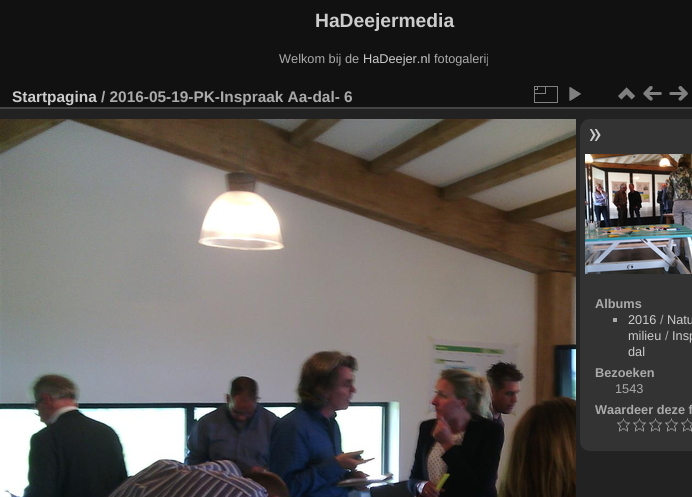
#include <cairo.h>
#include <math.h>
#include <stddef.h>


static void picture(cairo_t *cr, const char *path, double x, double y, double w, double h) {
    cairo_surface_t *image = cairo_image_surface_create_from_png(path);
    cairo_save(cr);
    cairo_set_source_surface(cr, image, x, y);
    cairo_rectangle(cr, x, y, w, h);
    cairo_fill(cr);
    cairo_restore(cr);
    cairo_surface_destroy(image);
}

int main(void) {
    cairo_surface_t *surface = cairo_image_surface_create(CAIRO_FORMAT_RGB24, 692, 497);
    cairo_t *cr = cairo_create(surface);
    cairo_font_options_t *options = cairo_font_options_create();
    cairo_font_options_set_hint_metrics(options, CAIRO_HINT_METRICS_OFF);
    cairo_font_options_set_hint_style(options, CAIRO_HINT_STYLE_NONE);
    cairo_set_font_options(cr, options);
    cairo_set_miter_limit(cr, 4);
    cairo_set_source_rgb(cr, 0.067, 0.067, 0.067);
    cairo_paint(cr);
    cairo_select_font_face(cr, "Liberation Sans", CAIRO_FONT_SLANT_NORMAL, CAIRO_FONT_WEIGHT_BOLD);
    cairo_set_font_size(cr, 19.25);
    cairo_set_source_rgb(cr, 0.8, 0.8, 0.8);
    cairo_move_to(cr, 315, 27);
    cairo_show_text(cr, "HaDeejermedia");
    cairo_select_font_face(cr, "Liberation Sans", CAIRO_FONT_SLANT_NORMAL, CAIRO_FONT_WEIGHT_NORMAL);
    cairo_set_font_size(cr, 12.75);
    cairo_set_source_rgb(cr, 0.667, 0.667, 0.667);
    cairo_move_to(cr, 279, 63);
    cairo_show_text(cr, "Welkom bij de");
    cairo_set_source_rgb(cr, 0.8, 0.8, 0.8);
    cairo_move_to(cr, 363, 63);
    cairo_show_text(cr, "HaDeejer.nl");
    cairo_set_source_rgb(cr, 0.667, 0.667, 0.667);
    cairo_move_to(cr, 434, 63);
    cairo_show_text(cr, "fotogalerij");
    cairo_set_source_rgb(cr, 0.133, 0.133, 0.133);
    cairo_rectangle(cr, 0, 109, 692, 388);
    cairo_fill(cr);
    cairo_set_source_rgb(cr, 0.267, 0.267, 0.267);
    cairo_rectangle(cr, 0, 107, 692, 2);
    cairo_fill(cr);
    cairo_select_font_face(cr, "Liberation Sans", CAIRO_FONT_SLANT_NORMAL, CAIRO_FONT_WEIGHT_BOLD);
    cairo_set_font_size(cr, 15.4);
    cairo_set_source_rgb(cr, 0.8, 0.8, 0.8);
    cairo_move_to(cr, 12, 102);
    cairo_show_text(cr, "Startpagina");
    cairo_set_source_rgb(cr, 0.667, 0.667, 0.667);
    cairo_move_to(cr, 101, 102);
    cairo_show_text(cr, "/ 2016-05-19-PK-Inspraak Aa-dal- 6");
    picture(cr, "img1.png", 534, 86, 24, 17);
    picture(cr, "img2.png", 569, 87, 12, 14);
    picture(cr, "img3.png", 618, 87, 17, 13);
    picture(cr, "img4.png", 643, 86, 19, 15);
    picture(cr, "img5.png", 669, 86, 19, 15);
    picture(cr, "img6.png", 0, 119, 576, 378);
    cairo_set_source_rgb(cr, 0.2, 0.2, 0.2);
    cairo_new_path(cr);
    cairo_move_to(cr, 590, 119);
    cairo_line_to(cr, 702, 119);
    cairo_line_to(cr, 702, 451);
    cairo_line_to(cr, 590, 451);
    cairo_curve_to(cr, 584.5, 451, 580, 446.5, 580, 441);
    cairo_line_to(cr, 580, 129);
    cairo_curve_to(cr, 580, 123.5, 584.5, 119, 590, 119);
    cairo_close_path(cr);
    cairo_fill(cr);
    picture(cr, "img7.png", 589, 129, 12, 12);
    picture(cr, "img8.png", 585, 154, 107, 120);
    cairo_set_font_size(cr, 12.75);
    cairo_set_source_rgb(cr, 0.667, 0.667, 0.667);
    cairo_move_to(cr, 595, 308);
    cairo_show_text(cr, "Albums");
    cairo_rectangle(cr, 613, 318, 4, 4);
    cairo_fill(cr);
    cairo_select_font_face(cr, "Liberation Sans", CAIRO_FONT_SLANT_NORMAL, CAIRO_FONT_WEIGHT_NORMAL);
    cairo_set_source_rgb(cr, 0.8, 0.8, 0.8);
    cairo_move_to(cr, 628, 324);
    cairo_show_text(cr, "2016");
    cairo_set_source_rgb(cr, 0.667, 0.667, 0.667);
    cairo_move_to(cr, 660, 324);
    cairo_show_text(cr, "/");
    cairo_set_source_rgb(cr, 0.8, 0.8, 0.8);
    cairo_move_to(cr, 667, 324);
    cairo_show_text(cr, "Natu");
    cairo_move_to(cr, 628, 340);
    cairo_show_text(cr, "milieu");
    cairo_set_source_rgb(cr, 0.667, 0.667, 0.667);
    cairo_move_to(cr, 665, 340);
    cairo_show_text(cr, "/");
    cairo_set_source_rgb(cr, 0.8, 0.8, 0.8);
    cairo_move_to(cr, 672, 340);
    cairo_show_text(cr, "Insp");
    cairo_move_to(cr, 628, 356);
    cairo_show_text(cr, "dal");
    cairo_select_font_face(cr, "Liberation Sans", CAIRO_FONT_SLANT_NORMAL, CAIRO_FONT_WEIGHT_BOLD);
    cairo_set_source_rgb(cr, 0.667, 0.667, 0.667);
    cairo_move_to(cr, 595, 377);
    cairo_show_text(cr, "Bezoeken");
    cairo_select_font_face(cr, "Liberation Sans", CAIRO_FONT_SLANT_NORMAL, CAIRO_FONT_WEIGHT_NORMAL);
    cairo_move_to(cr, 615, 393);
    cairo_show_text(cr, "1543");
    cairo_select_font_face(cr, "Liberation Sans", CAIRO_FONT_SLANT_NORMAL, CAIRO_FONT_WEIGHT_BOLD);
    cairo_move_to(cr, 595, 414);
    cairo_show_text(cr, "Waardeer deze f");
    picture(cr, "img9.png", 617, 418, 13, 14);
    picture(cr, "img9.png", 633, 418, 13, 14);
    picture(cr, "img9.png", 649, 418, 13, 14);
    picture(cr, "img9.png", 665, 418, 13, 14);
    picture(cr, "img10.png", 681, 418, 11, 14);
    cairo_surface_write_to_png(surface, "page.png");
    cairo_font_options_destroy(options);
    cairo_destroy(cr);
    cairo_surface_destroy(surface);
    return 0;
}
